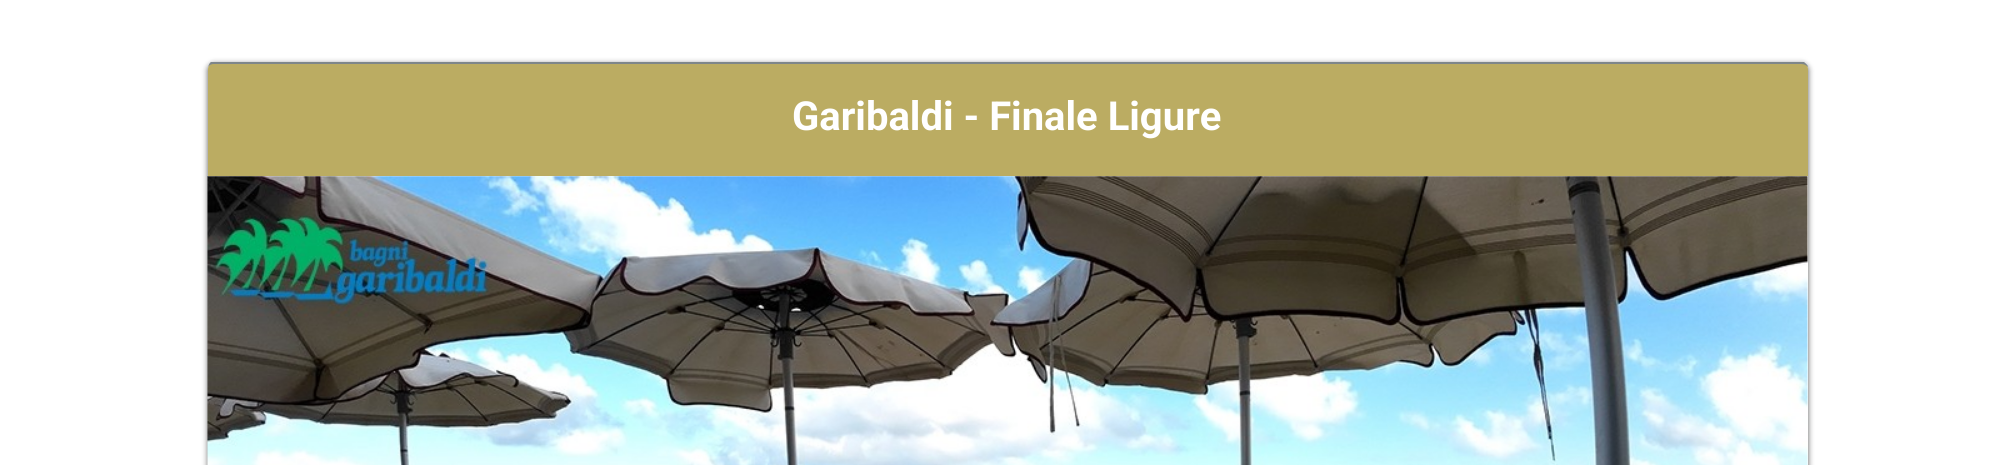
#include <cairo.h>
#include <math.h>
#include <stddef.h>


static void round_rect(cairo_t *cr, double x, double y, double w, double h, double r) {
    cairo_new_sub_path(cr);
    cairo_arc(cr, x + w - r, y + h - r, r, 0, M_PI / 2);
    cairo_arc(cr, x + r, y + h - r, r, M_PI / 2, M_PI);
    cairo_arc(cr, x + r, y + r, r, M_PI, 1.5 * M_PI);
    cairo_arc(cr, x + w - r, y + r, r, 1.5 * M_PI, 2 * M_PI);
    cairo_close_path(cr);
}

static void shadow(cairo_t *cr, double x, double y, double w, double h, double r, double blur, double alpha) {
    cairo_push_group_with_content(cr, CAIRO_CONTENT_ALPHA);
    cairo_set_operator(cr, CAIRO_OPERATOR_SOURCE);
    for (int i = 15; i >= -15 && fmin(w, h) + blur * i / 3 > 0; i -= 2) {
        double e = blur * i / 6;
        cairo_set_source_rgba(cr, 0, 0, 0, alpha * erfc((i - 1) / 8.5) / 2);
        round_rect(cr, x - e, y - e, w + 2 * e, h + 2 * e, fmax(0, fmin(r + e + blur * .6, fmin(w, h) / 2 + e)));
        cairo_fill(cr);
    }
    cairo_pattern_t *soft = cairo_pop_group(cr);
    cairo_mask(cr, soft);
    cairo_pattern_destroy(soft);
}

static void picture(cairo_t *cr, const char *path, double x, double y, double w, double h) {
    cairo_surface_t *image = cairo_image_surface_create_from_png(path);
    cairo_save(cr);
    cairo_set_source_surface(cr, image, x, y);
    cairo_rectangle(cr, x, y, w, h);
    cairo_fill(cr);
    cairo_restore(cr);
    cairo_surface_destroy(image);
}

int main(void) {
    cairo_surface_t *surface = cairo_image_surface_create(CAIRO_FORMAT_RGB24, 2013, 465);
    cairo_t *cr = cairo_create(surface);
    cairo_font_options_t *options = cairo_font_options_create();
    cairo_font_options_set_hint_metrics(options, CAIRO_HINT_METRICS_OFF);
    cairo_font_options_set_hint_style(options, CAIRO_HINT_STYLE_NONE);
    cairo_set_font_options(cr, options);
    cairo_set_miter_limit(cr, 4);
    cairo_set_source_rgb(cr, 1, 1, 1);
    cairo_paint(cr);
    cairo_set_source_rgb(cr, 0, 0, 0);
    shadow(cr, 208, 64, 1600, 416, 6, 3, 0.65);
    cairo_set_source_rgb(cr, 1, 1, 1);
    cairo_new_path(cr);
    cairo_move_to(cr, 214, 63);
    cairo_line_to(cr, 1802, 63);
    cairo_curve_to(cr, 1805.5, 63, 1808, 65.5, 1808, 69);
    cairo_line_to(cr, 1808, 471);
    cairo_line_to(cr, 208, 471);
    cairo_line_to(cr, 208, 69);
    cairo_curve_to(cr, 208, 65.5, 210.5, 63, 214, 63);
    cairo_close_path(cr);
    cairo_fill(cr);
    cairo_set_source_rgb(cr, 0.733, 0.675, 0.384);
    cairo_new_path(cr);
    cairo_move_to(cr, 214, 63);
    cairo_line_to(cr, 1802, 63);
    cairo_curve_to(cr, 1805.5, 63, 1808, 65.5, 1808, 69);
    cairo_line_to(cr, 1808, 176);
    cairo_line_to(cr, 208, 176);
    cairo_line_to(cr, 208, 69);
    cairo_curve_to(cr, 208, 65.5, 210.5, 63, 214, 63);
    cairo_close_path(cr);
    cairo_fill(cr);
    cairo_set_source_rgb(cr, 0.494, 0.525, 0.537);
    cairo_new_path(cr);
    cairo_move_to(cr, 214, 64);
    cairo_curve_to(cr, 210, 64, 208, 66, 208, 69);
    cairo_curve_to(cr, 208, 67, 209, 63, 211, 62);
    cairo_line_to(cr, 1804, 62);
    cairo_curve_to(cr, 1805, 63, 1808, 65, 1808, 67);
    cairo_curve_to(cr, 1806, 65, 1804, 64, 1801, 64);
    cairo_close_path(cr);
    cairo_fill(cr);
    cairo_select_font_face(cr, "Roboto", CAIRO_FONT_SLANT_NORMAL, CAIRO_FONT_WEIGHT_BOLD);
    cairo_set_font_size(cr, 40);
    cairo_set_source_rgb(cr, 1, 1, 1);
    cairo_move_to(cr, 792, 130);
    cairo_show_text(cr, "Garibaldi - Finale Ligure");
    picture(cr, "img1.png", 207, 176, 1601, 289);
    cairo_surface_write_to_png(surface, "page.png");
    cairo_font_options_destroy(options);
    cairo_destroy(cr);
    cairo_surface_destroy(surface);
    return 0;
}
